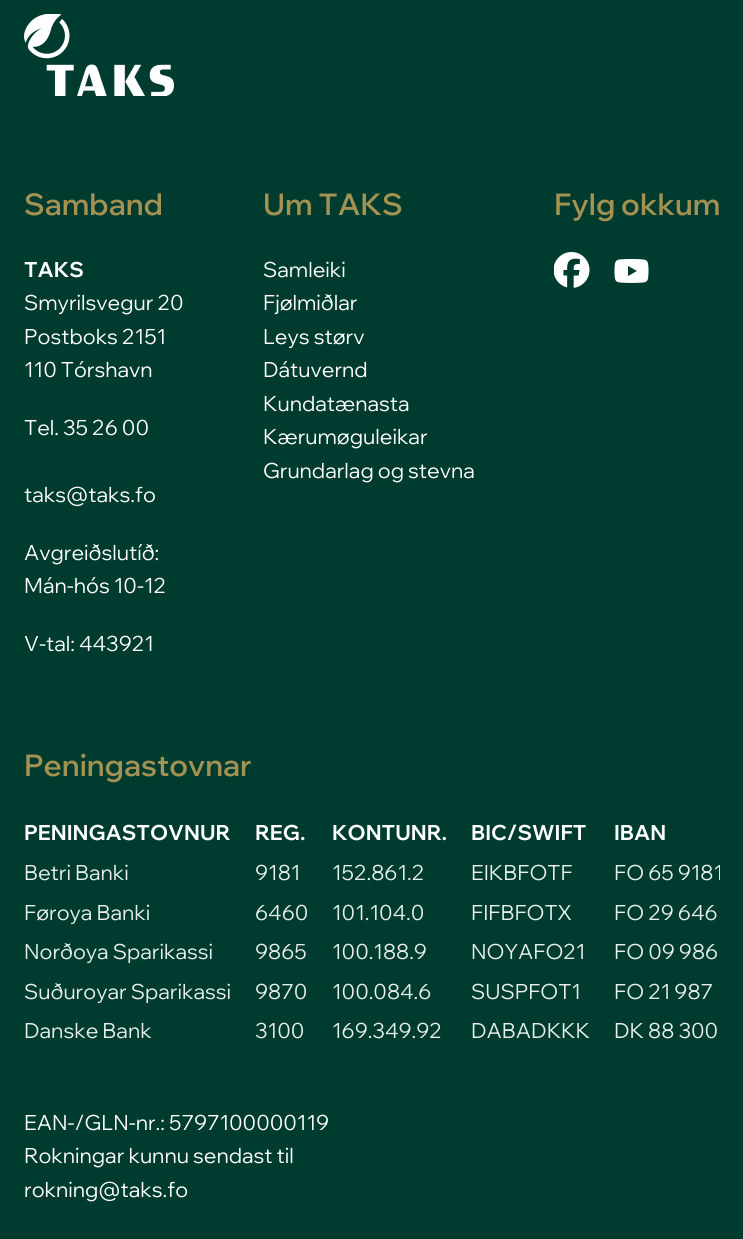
#include <cairo.h>
#include <math.h>
#include <stddef.h>


static void picture(cairo_t *cr, const char *path, double x, double y, double w, double h) {
    cairo_surface_t *image = cairo_image_surface_create_from_png(path);
    cairo_save(cr);
    cairo_set_source_surface(cr, image, x, y);
    cairo_rectangle(cr, x, y, w, h);
    cairo_fill(cr);
    cairo_restore(cr);
    cairo_surface_destroy(image);
}

int main(void) {
    cairo_surface_t *surface = cairo_image_surface_create(CAIRO_FORMAT_RGB24, 743, 1239);
    cairo_t *cr = cairo_create(surface);
    cairo_font_options_t *options = cairo_font_options_create();
    cairo_font_options_set_hint_metrics(options, CAIRO_HINT_METRICS_OFF);
    cairo_font_options_set_hint_style(options, CAIRO_HINT_STYLE_NONE);
    cairo_set_font_options(cr, options);
    cairo_set_miter_limit(cr, 4);
    cairo_set_source_rgb(cr, 0, 0.231, 0.184);
    cairo_paint(cr);
    picture(cr, "img1.png", 24, 14, 150, 82);
    cairo_select_font_face(cr, "Wix Madefor Display SemiBold", CAIRO_FONT_SLANT_NORMAL, CAIRO_FONT_WEIGHT_NORMAL);
    cairo_set_font_size(cr, 30);
    cairo_set_source_rgb(cr, 0.639, 0.573, 0.318);
    cairo_move_to(cr, 24, 215);
    cairo_show_text(cr, "Samband");
    cairo_select_font_face(cr, "Wix Madefor Display", CAIRO_FONT_SLANT_NORMAL, CAIRO_FONT_WEIGHT_BOLD);
    cairo_set_font_size(cr, 21);
    cairo_set_source_rgb(cr, 1, 1, 1);
    cairo_move_to(cr, 24, 277);
    cairo_show_text(cr, "TAKS");
    cairo_select_font_face(cr, "Wix Madefor Display", CAIRO_FONT_SLANT_NORMAL, CAIRO_FONT_WEIGHT_NORMAL);
    cairo_move_to(cr, 24, 310);
    cairo_show_text(cr, "Smyrilsvegur 20");
    cairo_move_to(cr, 24, 344);
    cairo_show_text(cr, "Postboks 2151");
    cairo_move_to(cr, 24, 377);
    cairo_show_text(cr, "110 Tórshavn");
    cairo_move_to(cr, 24, 435);
    cairo_show_text(cr, "Tel. 35 26 00");
    cairo_move_to(cr, 24, 502);
    cairo_show_text(cr, "taks@taks.fo");
    cairo_move_to(cr, 24, 560);
    cairo_show_text(cr, "Avgreiðslutíð:");
    cairo_move_to(cr, 24, 593);
    cairo_show_text(cr, "Mán-hós 10-12");
    cairo_move_to(cr, 24, 651);
    cairo_show_text(cr, "V-tal: 443921");
    cairo_select_font_face(cr, "Wix Madefor Display SemiBold", CAIRO_FONT_SLANT_NORMAL, CAIRO_FONT_WEIGHT_NORMAL);
    cairo_set_font_size(cr, 30);
    cairo_set_source_rgb(cr, 0.639, 0.573, 0.318);
    cairo_move_to(cr, 263, 215);
    cairo_show_text(cr, "Um TAKS");
    cairo_select_font_face(cr, "Wix Madefor Display", CAIRO_FONT_SLANT_NORMAL, CAIRO_FONT_WEIGHT_NORMAL);
    cairo_set_font_size(cr, 21);
    cairo_set_source_rgb(cr, 1, 1, 1);
    cairo_move_to(cr, 263, 277);
    cairo_show_text(cr, "Samleiki");
    cairo_move_to(cr, 263, 310);
    cairo_show_text(cr, "Fjølmiðlar");
    cairo_move_to(cr, 263, 344);
    cairo_show_text(cr, "Leys størv");
    cairo_move_to(cr, 263, 377);
    cairo_show_text(cr, "Dátuvernd");
    cairo_move_to(cr, 263, 411);
    cairo_show_text(cr, "Kundatænasta");
    cairo_move_to(cr, 263, 444);
    cairo_show_text(cr, "Kærumøguleikar");
    cairo_move_to(cr, 263, 478);
    cairo_show_text(cr, "Grundarlag og stevna");
    cairo_select_font_face(cr, "Wix Madefor Display SemiBold", CAIRO_FONT_SLANT_NORMAL, CAIRO_FONT_WEIGHT_NORMAL);
    cairo_set_font_size(cr, 30);
    cairo_set_source_rgb(cr, 0.639, 0.573, 0.318);
    cairo_move_to(cr, 554, 215);
    cairo_show_text(cr, "Fylg okkum");
    picture(cr, "img2.png", 554, 252, 36, 36);
    picture(cr, "img3.png", 614, 259, 35, 24);
    cairo_move_to(cr, 24, 776);
    cairo_show_text(cr, "Peningastovnar");
    cairo_select_font_face(cr, "Wix Madefor Display", CAIRO_FONT_SLANT_NORMAL, CAIRO_FONT_WEIGHT_BOLD);
    cairo_set_font_size(cr, 21);
    cairo_set_source_rgb(cr, 1, 1, 1);
    cairo_move_to(cr, 24, 840);
    cairo_show_text(cr, "PENINGASTOVNUR");
    cairo_move_to(cr, 255, 840);
    cairo_show_text(cr, "REG.");
    cairo_move_to(cr, 332, 840);
    cairo_show_text(cr, "KONTUNR.");
    cairo_move_to(cr, 471, 840);
    cairo_show_text(cr, "BIC/SWIFT");
    cairo_move_to(cr, 614, 840);
    cairo_show_text(cr, "IBAN");
    cairo_select_font_face(cr, "Wix Madefor Display", CAIRO_FONT_SLANT_NORMAL, CAIRO_FONT_WEIGHT_NORMAL);
    cairo_set_source_rgb(cr, 0.902, 0.937, 0.925);
    cairo_move_to(cr, 24, 880);
    cairo_show_text(cr, "Betri Banki");
    cairo_move_to(cr, 255, 880);
    cairo_show_text(cr, "9181");
    cairo_move_to(cr, 332, 880);
    cairo_show_text(cr, "152.861.2");
    cairo_move_to(cr, 471, 880);
    cairo_show_text(cr, "EIKBFOTF");
    cairo_save(cr);
    cairo_rectangle(cr, 24, 813, 696, 239);
    cairo_clip(cr);
    cairo_move_to(cr, 614, 880);
    cairo_show_text(cr, "FO 65 9181");
    cairo_restore(cr);
    cairo_move_to(cr, 24, 920);
    cairo_show_text(cr, "Føroya Banki");
    cairo_move_to(cr, 255, 920);
    cairo_show_text(cr, "6460");
    cairo_move_to(cr, 332, 920);
    cairo_show_text(cr, "101.104.0");
    cairo_move_to(cr, 471, 920);
    cairo_show_text(cr, "FIFBFOTX");
    cairo_move_to(cr, 614, 920);
    cairo_show_text(cr, "FO 29 646");
    cairo_move_to(cr, 24, 959);
    cairo_show_text(cr, "Norðoya Sparikassi");
    cairo_move_to(cr, 255, 959);
    cairo_show_text(cr, "9865");
    cairo_move_to(cr, 332, 959);
    cairo_show_text(cr, "100.188.9");
    cairo_move_to(cr, 471, 959);
    cairo_show_text(cr, "NOYAFO21");
    cairo_move_to(cr, 614, 959);
    cairo_show_text(cr, "FO 09 986");
    cairo_move_to(cr, 24, 999);
    cairo_show_text(cr, "Suðuroyar Sparikassi");
    cairo_move_to(cr, 255, 999);
    cairo_show_text(cr, "9870");
    cairo_move_to(cr, 332, 999);
    cairo_show_text(cr, "100.084.6");
    cairo_move_to(cr, 471, 999);
    cairo_show_text(cr, "SUSPFOT1");
    cairo_move_to(cr, 614, 999);
    cairo_show_text(cr, "FO 21 987");
    cairo_move_to(cr, 24, 1038);
    cairo_show_text(cr, "Danske Bank");
    cairo_move_to(cr, 255, 1038);
    cairo_show_text(cr, "3100");
    cairo_move_to(cr, 332, 1038);
    cairo_show_text(cr, "169.349.92");
    cairo_move_to(cr, 471, 1038);
    cairo_show_text(cr, "DABADKKK");
    cairo_move_to(cr, 614, 1038);
    cairo_show_text(cr, "DK 88 300");
    cairo_set_source_rgb(cr, 1, 1, 1);
    cairo_move_to(cr, 24, 1130);
    cairo_show_text(cr, "EAN-/GLN-nr.: 5797100000119");
    cairo_move_to(cr, 24, 1163);
    cairo_show_text(cr, "Rokningar kunnu sendast til");
    cairo_move_to(cr, 24, 1197);
    cairo_show_text(cr, "rokning@taks.fo");
    cairo_surface_write_to_png(surface, "page.png");
    cairo_font_options_destroy(options);
    cairo_destroy(cr);
    cairo_surface_destroy(surface);
    return 0;
}
